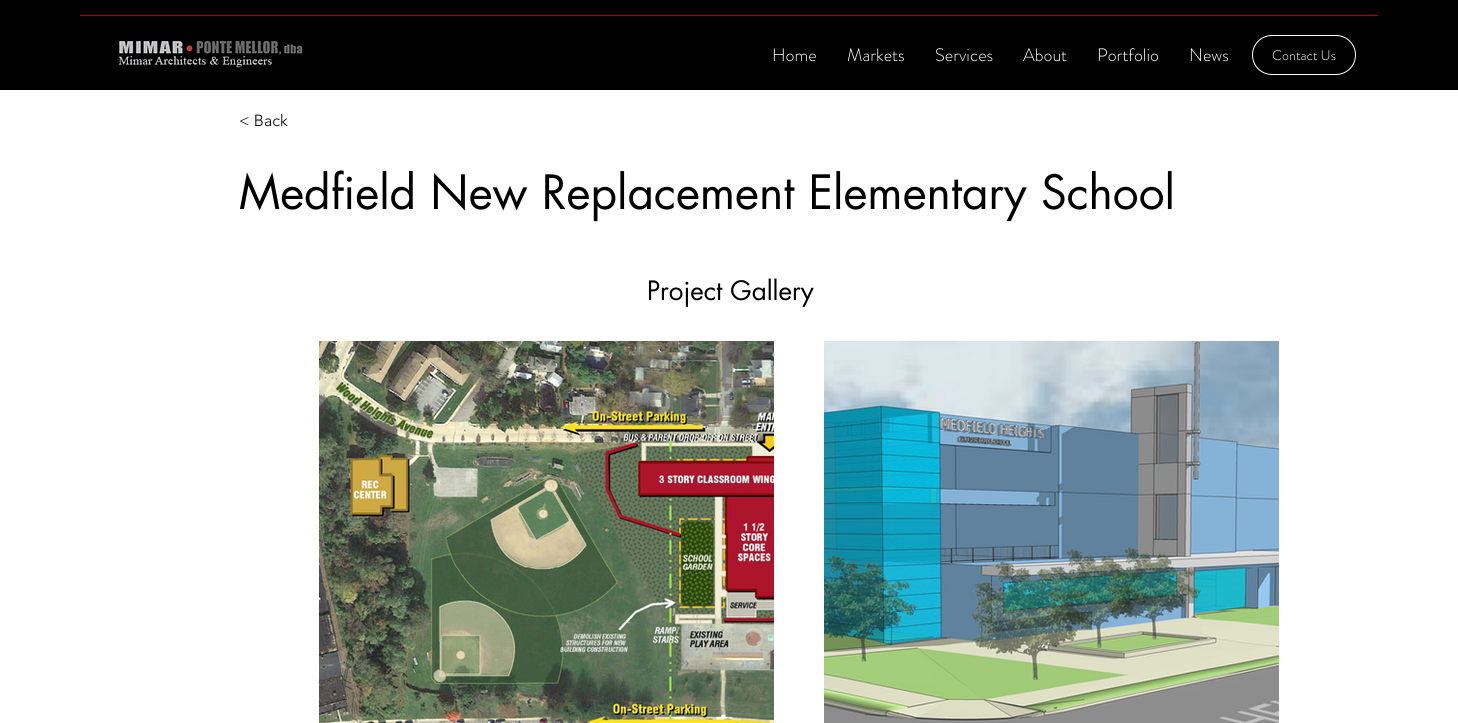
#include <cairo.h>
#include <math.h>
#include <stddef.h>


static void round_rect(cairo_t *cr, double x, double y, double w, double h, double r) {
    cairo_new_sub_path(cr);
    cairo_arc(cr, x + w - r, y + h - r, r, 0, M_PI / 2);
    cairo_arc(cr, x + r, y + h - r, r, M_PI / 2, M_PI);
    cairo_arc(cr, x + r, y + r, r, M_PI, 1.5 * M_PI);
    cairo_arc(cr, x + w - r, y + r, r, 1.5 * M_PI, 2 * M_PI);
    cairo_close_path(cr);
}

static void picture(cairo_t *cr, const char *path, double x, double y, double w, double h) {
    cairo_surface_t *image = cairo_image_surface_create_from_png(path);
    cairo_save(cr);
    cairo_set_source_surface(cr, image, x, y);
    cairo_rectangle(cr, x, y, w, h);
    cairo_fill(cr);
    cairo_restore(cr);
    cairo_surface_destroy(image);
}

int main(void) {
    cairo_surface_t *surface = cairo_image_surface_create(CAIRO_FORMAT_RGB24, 1458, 723);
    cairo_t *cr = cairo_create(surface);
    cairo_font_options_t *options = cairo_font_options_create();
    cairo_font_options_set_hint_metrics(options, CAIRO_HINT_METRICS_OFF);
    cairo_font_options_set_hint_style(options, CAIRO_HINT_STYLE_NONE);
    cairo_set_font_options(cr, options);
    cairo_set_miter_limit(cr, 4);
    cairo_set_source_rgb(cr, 1, 1, 1);
    cairo_paint(cr);
    cairo_set_source_rgb(cr, 0, 0, 0);
    cairo_rectangle(cr, 0, 0, 1458, 90);
    cairo_fill(cr);
    cairo_set_source_rgb(cr, 0.698, 0, 0.035);
    cairo_rectangle(cr, 80, 15, 1298, 1);
    cairo_fill(cr);
    picture(cr, "img1.png", 118, 40, 185, 28);
    cairo_select_font_face(cr, "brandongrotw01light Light", CAIRO_FONT_SLANT_NORMAL, CAIRO_FONT_WEIGHT_NORMAL);
    cairo_set_font_size(cr, 18);
    cairo_set_source_rgb(cr, 1, 1, 1);
    cairo_move_to(cr, 772, 61);
    cairo_show_text(cr, "Home");
    cairo_move_to(cr, 847, 61);
    cairo_show_text(cr, "Markets");
    cairo_move_to(cr, 935, 61);
    cairo_show_text(cr, "Services");
    cairo_move_to(cr, 1023, 61);
    cairo_show_text(cr, "About");
    cairo_move_to(cr, 1097, 61);
    cairo_show_text(cr, "Portfolio");
    cairo_move_to(cr, 1189, 61);
    cairo_show_text(cr, "News");
    round_rect(cr, 1252.5, 35.5, 103, 39, 19.5);
    cairo_set_line_width(cr, 1);
    cairo_stroke(cr);
    cairo_set_font_size(cr, 14);
    cairo_move_to(cr, 1272, 60);
    cairo_show_text(cr, "Contact Us");
    cairo_select_font_face(cr, "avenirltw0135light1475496 Light", CAIRO_FONT_SLANT_NORMAL, CAIRO_FONT_WEIGHT_NORMAL);
    cairo_set_font_size(cr, 16);
    cairo_set_source_rgb(cr, 0, 0, 0);
    cairo_move_to(cr, 239, 126);
    cairo_show_text(cr, "< Back");
    cairo_select_font_face(cr, "futura", CAIRO_FONT_SLANT_NORMAL, CAIRO_FONT_WEIGHT_NORMAL);
    cairo_set_font_size(cr, 46);
    cairo_move_to(cr, 239, 209);
    cairo_show_text(cr, "Medfield New Replacement Elementary School");
    cairo_set_font_size(cr, 26);
    cairo_move_to(cr, 647, 300);
    cairo_show_text(cr, "Project Gallery");
    picture(cr, "img2.png", 319, 341, 455, 382);
    picture(cr, "img3.png", 824, 341, 455, 382);
    cairo_surface_write_to_png(surface, "page.png");
    cairo_font_options_destroy(options);
    cairo_destroy(cr);
    cairo_surface_destroy(surface);
    return 0;
}
